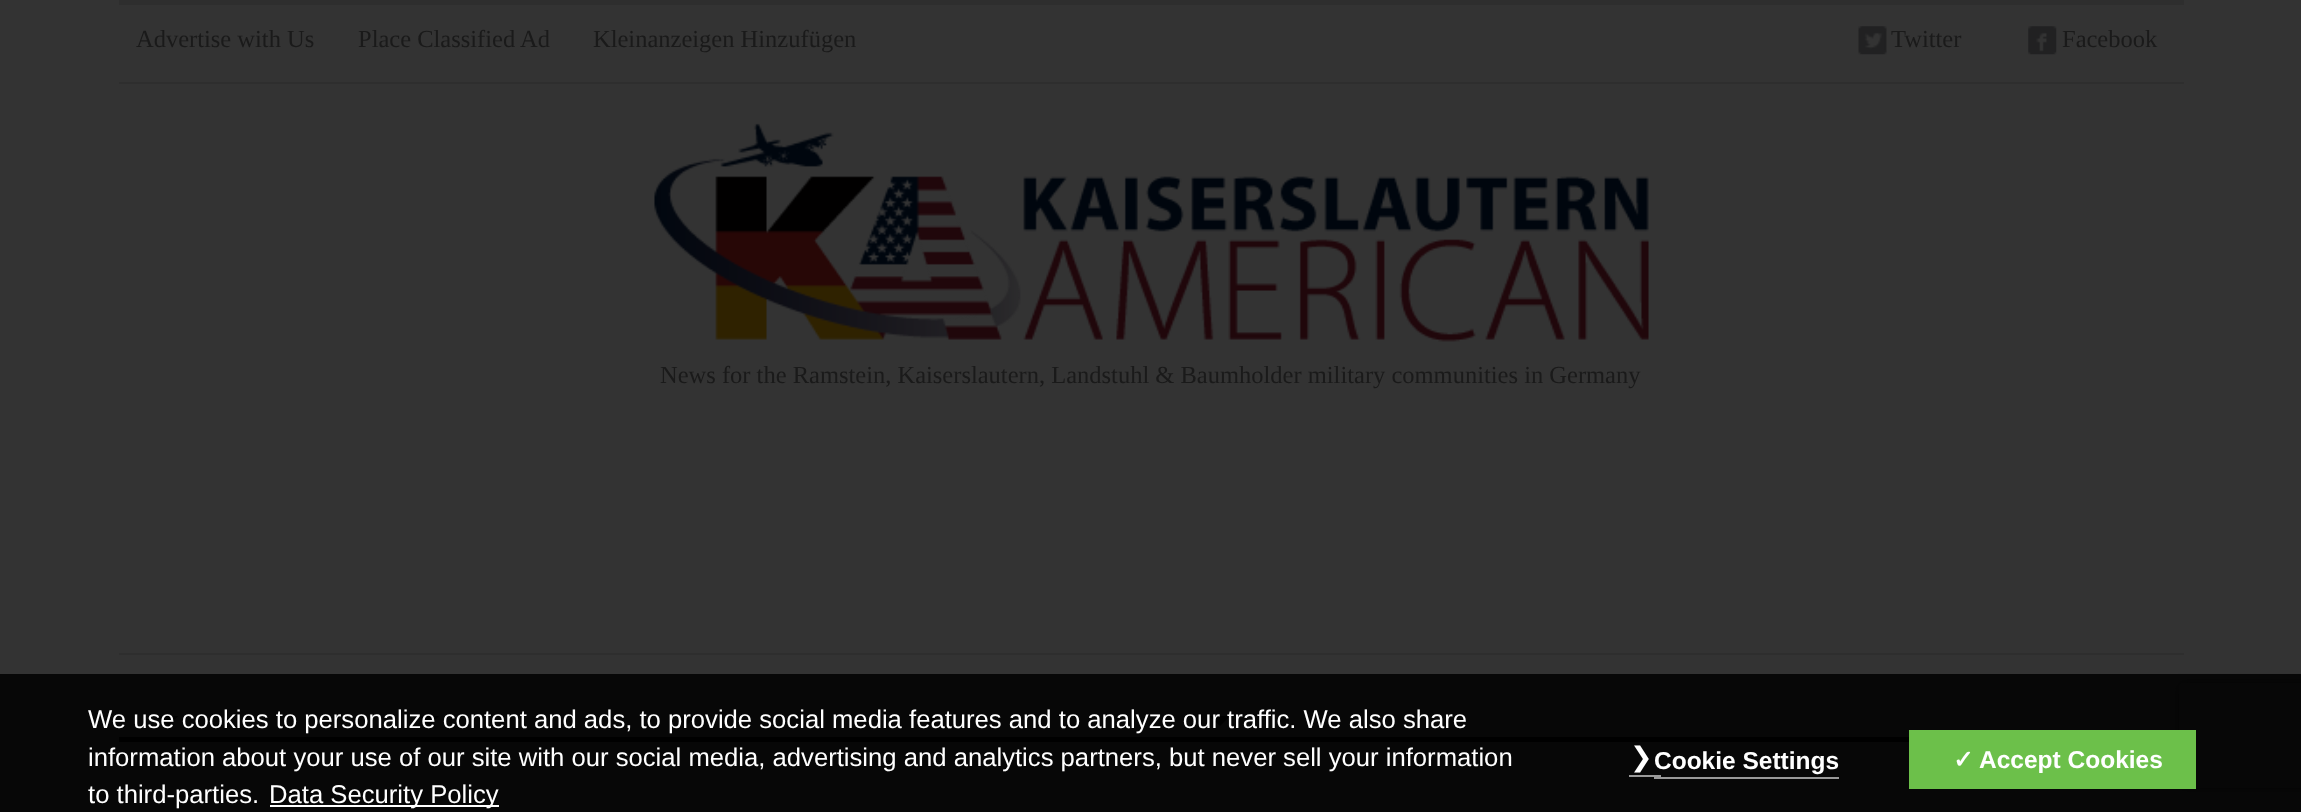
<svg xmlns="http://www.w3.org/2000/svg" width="2301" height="812">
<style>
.a{font:24.5px Liberation Serif;fill:#1a1a1a}
.b{font:25.67px Liberation Sans;fill:#fff}
.c{font:27px DejaVu Sans;fill:#fff}
.d{font:bold 24.5px Liberation Sans;fill:#fff}
.e{font:bold 24.5px DejaVu Sans;fill:#fff}
</style>
<defs>
<clipPath id="clip1"><path d="M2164 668h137v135h-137zm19 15h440c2 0 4 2 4 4v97c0 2-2 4-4 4h-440c-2 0-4-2-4-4v-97c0-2 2-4 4-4z" clip-rule="evenodd"/></clipPath>
</defs>
<rect width="100%" height="100%" fill="#333"/>
<path fill="#2e2e2e" d="M119 0h2065v5H119z"/>
<path fill="#2e2e2e" d="M119 82h2065v2H119z"/>
<image href="1.png" x="1858" y="26" width="29" height="29"/>
<image href="2.png" x="2028" y="26" width="29" height="29"/>
<image href="3.png" x="654" y="123" width="995" height="219"/>
<path fill="#2e2e2e" d="M119 653h2065v2H119z"/>
<path fill="#050505" d="M119 737h1790v5H119z"/>
<path fill="#000" d="M157.5 716h21l-10.5 10z"/>
<path fill="#000" d="M418 716h21l-10 10z"/>
<path fill="#000" d="M675.5 716h21l-10.5 10z"/>
<path fill="#000" d="M920.5 716h21l-10.5 10z"/>
<path fill="#000" d="M1209 716h21l-10 10z"/>
<g clip-path="url(#clip1)">
<rect fill="#1a1a1a" filter="blur(4.5px)" x="2179" y="683" width="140" height="105" rx="4"/>
</g>
<path fill="#000000d9" d="M0 674h2301v138H0z"/>
<path fill="#fff" d="M270 805h229v2H270z"/>
<path fill="#999" d="M1629 775h32v2H1629z"/>
<path fill="#999" d="M1654 777h185v2H1654z"/>
<path fill="#6cc04a" d="M1909 730h287v59H1909z"/>
<text class="a" x="136" y="47">Advertise with Us</text>
<text class="a" x="358" y="47">Place Classified Ad</text>
<text class="a" x="593" y="47">Kleinanzeigen Hinzufügen</text>
<text class="a" x="1891" y="47">Twitter</text>
<text class="a" x="2062" y="47">Facebook</text>
<text class="a" x="660" y="383">News for the Ramstein, Kaiserslautern, Landstuhl &amp; Baumholder military communities in Germany</text>
<text class="b" x="88" y="728">We use cookies to personalize content and ads, to provide social media features and to analyze our traffic. We also share</text>
<text class="b" x="88" y="766">information about your use of our site with our social media, advertising and analytics partners, but never sell your information</text>
<text class="b" x="88" y="803">to third-parties.</text>
<text class="b" x="269" y="803">Data Security Policy</text>
<text class="c" x="1630" y="766">❯</text>
<text class="d" x="1654" y="769">Cookie Settings</text>
<text class="e" x="1953" y="768">✓</text>
<text class="d" x="1979" y="768">Accept Cookies</text>
</svg>
